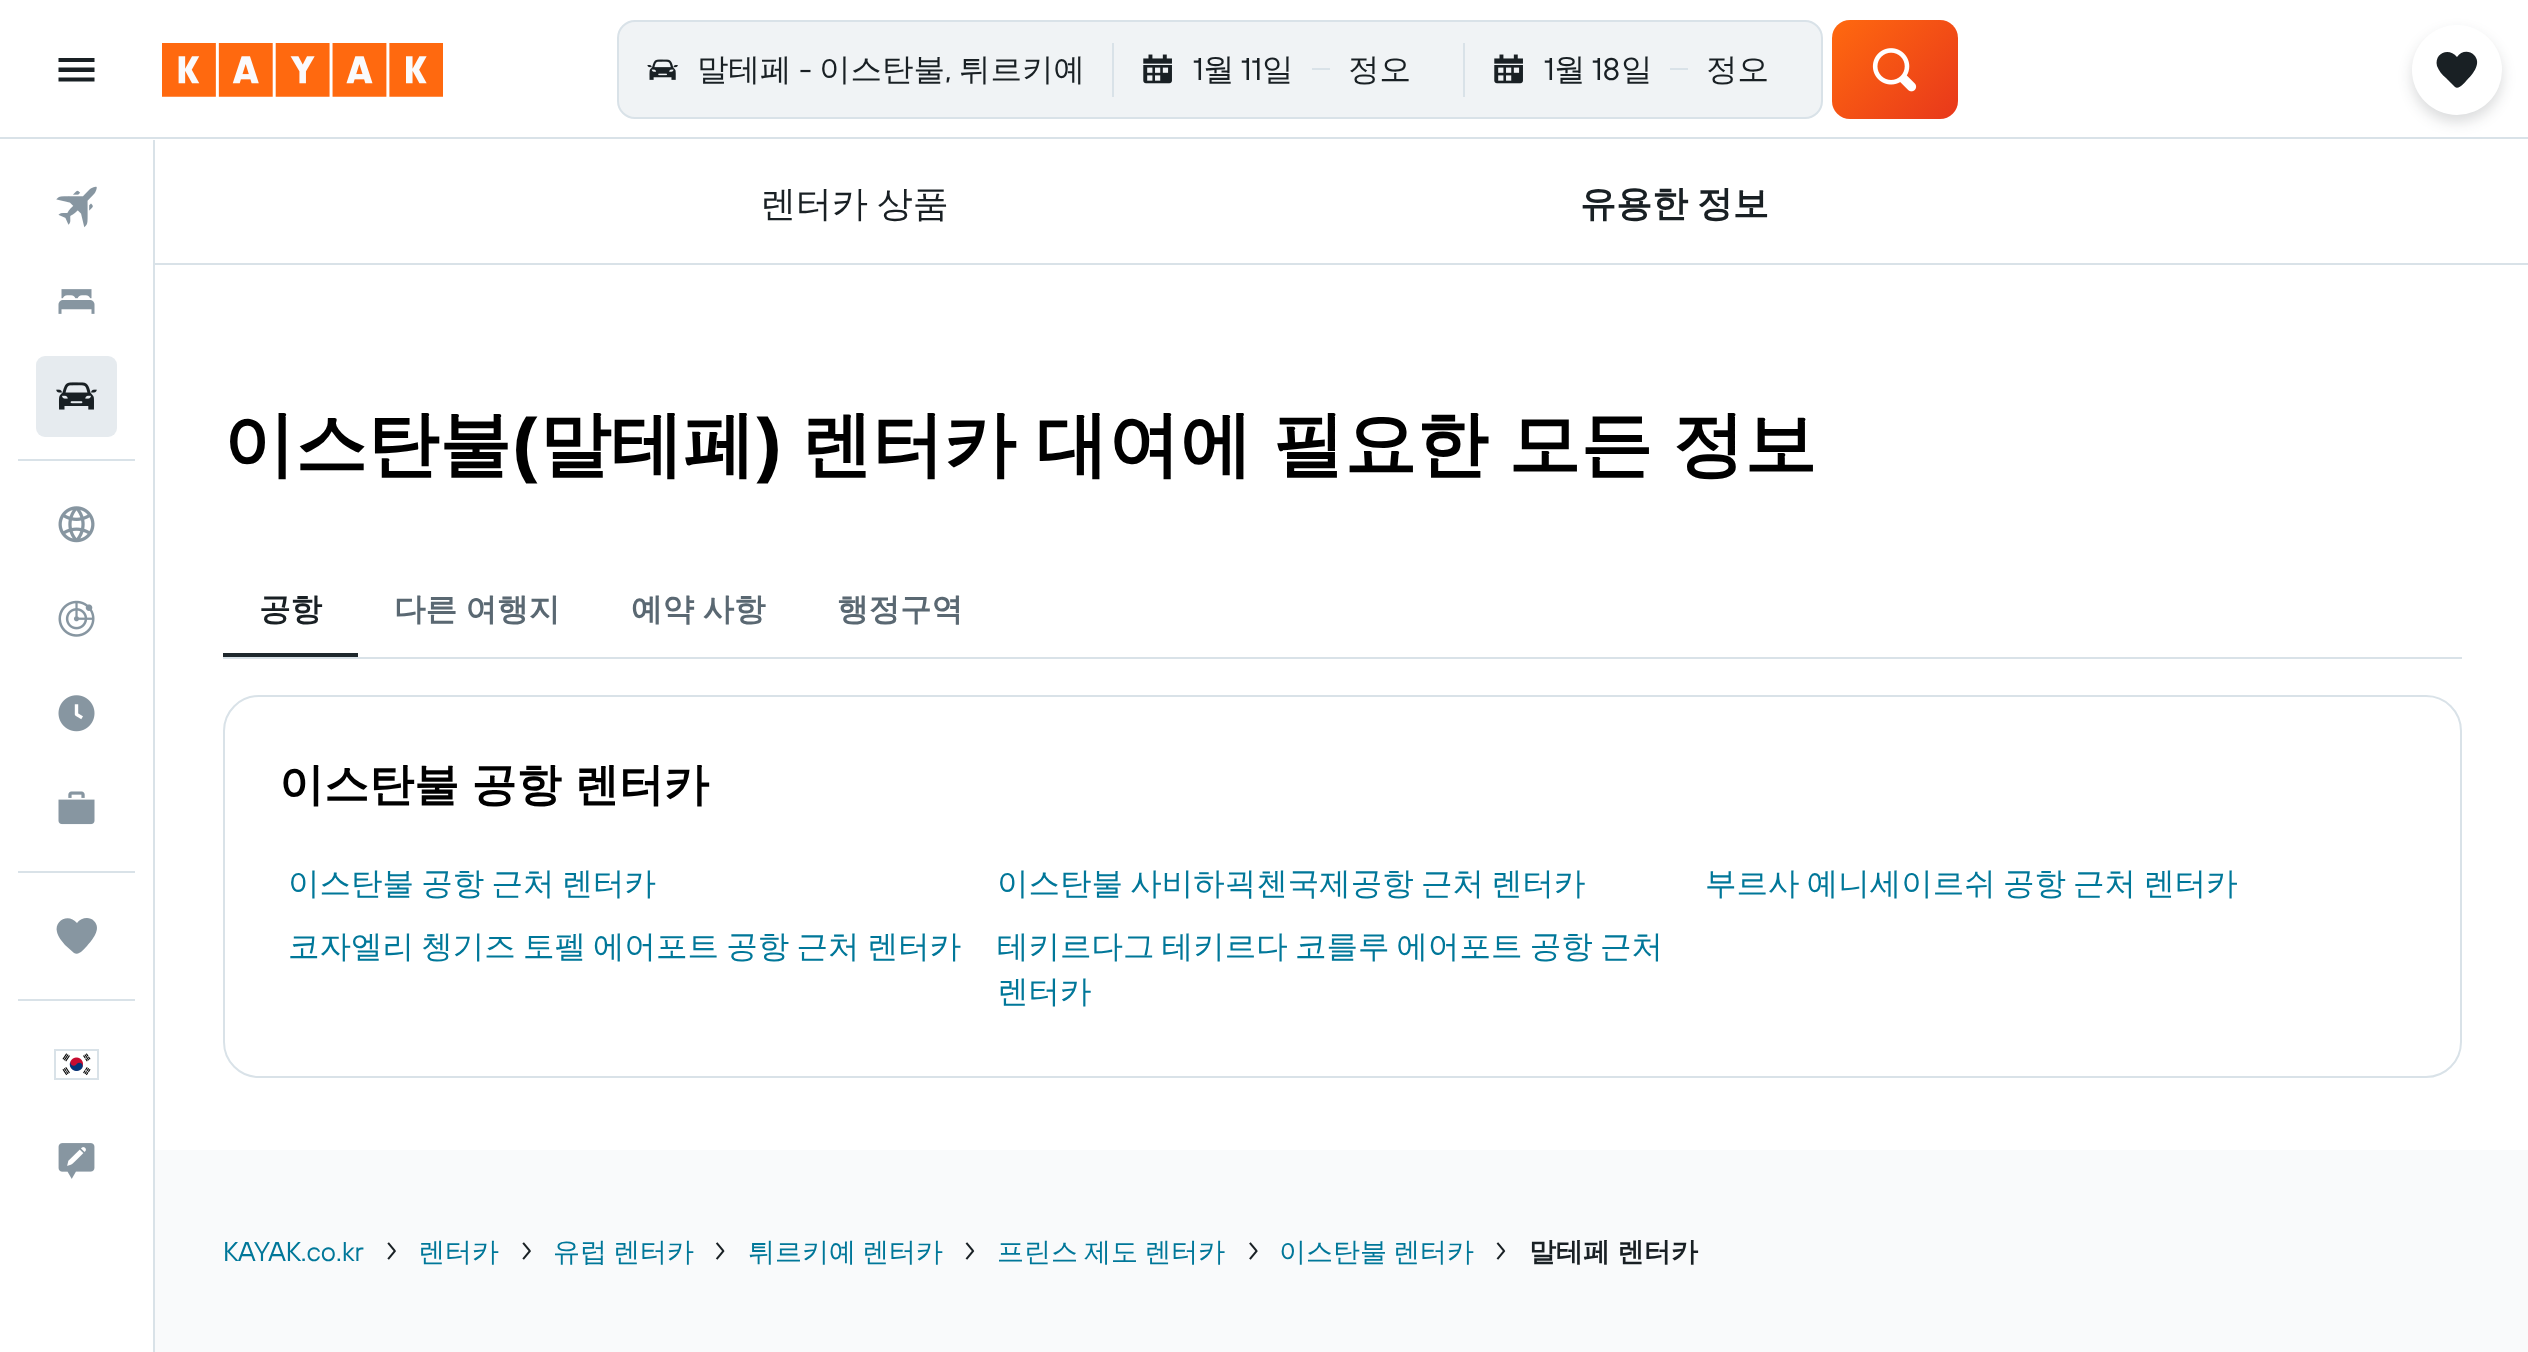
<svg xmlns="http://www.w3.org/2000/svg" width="2528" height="1352">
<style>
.a{font:500 31.5px WenQuanYi Zen Hei;fill:#192024}
.b{font:31.5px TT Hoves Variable;fill:#192024}
.c{font:500 36px WenQuanYi Zen Hei;fill:#192024}
.d{font:bold 36px WenQuanYi Zen Hei;fill:#192024}
.e{font:bold 72px WenQuanYi Zen Hei;fill:#000}
.f{font:bold 72px TT Hoves Variable;fill:#000}
.g{font:bold 31.5px WenQuanYi Zen Hei;fill:#192024}
.h{font:bold 31.5px WenQuanYi Zen Hei;fill:#5a6872}
.i{font:bold 45px WenQuanYi Zen Hei;fill:#000}
.j{font:500 31.5px WenQuanYi Zen Hei;fill:#079}
.k{font:27px TT Hoves Variable;fill:#079}
.l{font:500 27px WenQuanYi Zen Hei;fill:#079}
.m{font:bold 27px WenQuanYi Zen Hei;fill:#192024}
</style>
<defs>
<linearGradient id="g1" gradientUnits="userSpaceOnUse" x1="1838" y1="14" x2="1951" y2="126"><stop offset="0" stop-color="#ff690f"/><stop offset="1" stop-color="#e8381b"/></linearGradient>
</defs>
<rect width="100%" height="100%" fill="#fff"/>
<path fill="#d9e2e8" d="M0 137h2528v2H0z"/>
<path fill="#192024" d="M58.5 81.5h36v-4h-36zm0-9.5h36v-4.5h-36zm0-14v4h36v-4z"/>
<image href="1.png" x="162" y="43" width="281" height="54"/>
<rect fill="#f0f3f5" stroke="#d9e2e8" stroke-width="2" x="618" y="21" width="1204" height="97" rx="17"/>
<image href="2.png" x="647" y="59" width="31" height="21"/>
<path fill="#d9e2e8" d="M1112 43h2v54H1112z"/>
<image href="3.png" x="1143" y="54" width="29" height="30"/>
<path fill="#d9e2e8" d="M1312 68h18v2H1312z"/>
<path fill="#d9e2e8" d="M1463 43h2v54H1463z"/>
<image href="3.png" x="1494" y="54" width="29" height="30"/>
<path fill="#d9e2e8" d="M1670 68h18v2H1670z"/>
<rect fill="url(#g1)" x="1832" y="20" width="126" height="99" rx="18"/>
<image href="4.png" x="1872" y="48" width="45" height="44"/>
<rect fill="#19202429" filter="blur(7px)" x="2412" y="32" width="90" height="90" rx="45"/>
<circle fill="#fff" cx="2457" cy="70" r="45"/>
<path fill="#192024" d="M2474 55c-5-5-13-4-17 2c-8-10-23-4-20 9c2 5 5 9 9 12l9 9c4 3 10-5 12-7c6-6 15-17 7-25z"/>
<path fill="#d9e2e8" d="M153 140h2v1212H153z"/>
<image href="5.png" x="56" y="186" width="41" height="42"/>
<image href="6.png" x="58" y="289" width="37" height="25"/>
<rect fill="#e6ebef" x="36" y="356" width="81" height="81" rx="9"/>
<image href="7.png" x="56" y="382" width="41" height="28"/>
<path fill="#d9e2e8" d="M18 459h117v2H18z"/>
<image href="8.png" x="58" y="506" width="37" height="37"/>
<image href="9.png" x="58" y="600" width="37" height="37"/>
<image href="10.png" x="58" y="695" width="37" height="37"/>
<image href="11.png" x="58" y="791" width="37" height="34"/>
<path fill="#d9e2e8" d="M18 871h117v2H18z"/>
<path fill="#8796a1" d="M94 921c-5-5-13-3-17 2c-8-10-23-3-20 9c1 5 5 9 8 13l9 8c5 3 10-4 13-7c5-6 15-17 7-25z"/>
<path fill="#d9e2e8" d="M18 999h117v2H18z"/>
<path fill="none" stroke="#d9e2e8" stroke-width="2" d="M55 1050h43v29H55z"/>
<image href="12.png" x="62" y="1053" width="29" height="23"/>
<image href="13.png" x="58" y="1143" width="37" height="36"/>
<path fill="#d9e2e8" d="M155 263h2373v2H155z"/>
<path fill="#1f282d" d="M223 653h135v4H223z"/>
<path fill="#d9e2e8" d="M223 657h2239v2H223z"/>
<rect fill="none" stroke="#d9e2e8" stroke-width="2" x="224" y="696" width="2237" height="381" rx="35"/>
<path fill="#f9fafb" d="M155 1150h2373v202H155z"/>
<image href="14.png" x="387" y="1242" width="9" height="18"/>
<image href="14.png" x="522" y="1242" width="9" height="18"/>
<image href="15.png" x="715" y="1242" width="10" height="18"/>
<image href="16.png" x="965" y="1242" width="10" height="18"/>
<image href="17.png" x="1249" y="1242" width="9" height="18"/>
<image href="16.png" x="1496" y="1242" width="10" height="18"/>
<text class="a" x="697" y="80">말테페</text>
<text class="b" x="799" y="80">-</text>
<text class="a" x="819" y="80">이스탄불</text>
<text class="a" x="959" y="80">튀르키예</text>
<text class="b" x="945" y="80">,</text>
<text class="b" x="1193" y="80">1</text>
<text class="a" x="1203" y="80">월</text>
<text class="b" x="1241" y="80">11</text>
<text class="a" x="1262" y="80">일</text>
<text class="a" x="1348" y="80">정오</text>
<text class="b" x="1544" y="80">1</text>
<text class="a" x="1554" y="80">월</text>
<text class="b" x="1592" y="80">18</text>
<text class="a" x="1621" y="80">일</text>
<text class="a" x="1706" y="80">정오</text>
<text class="c" x="760" y="216" word-spacing="-2">렌터카 상품</text>
<text class="d" x="1580" y="216" word-spacing="-2">유용한 정보</text>
<text class="e" x="223" y="469">이스탄불</text>
<text class="f" x="511" y="469">(</text>
<text class="e" x="539" y="469">말테페</text>
<text class="f" x="755" y="469">)</text>
<text class="e" x="800" y="469" word-spacing="-1.5">렌터카 대여에 필요한 모든 정보</text>
<text class="g" x="259" y="620">공항</text>
<text class="h" x="394" y="620" word-spacing="-1">다른 여행지</text>
<text class="h" x="631" y="620" word-spacing="-1">예약 사항</text>
<text class="h" x="837" y="620">행정구역</text>
<text class="i" x="279" y="800" word-spacing="-1">이스탄불 공항 렌터카</text>
<text class="j" x="288" y="894" word-spacing="-2.25">이스탄불 공항 근처 렌터카</text>
<text class="j" x="997" y="894" word-spacing="-2.25">이스탄불 사비하괵첸국제공항 근처 렌터카</text>
<text class="j" x="1705" y="894" word-spacing="-2.25">부르사 예니세이르쉬 공항 근처 렌터카</text>
<text class="j" x="288" y="957" word-spacing="-2.25">코자엘리 쳉기즈 토펠 에어포트 공항 근처 렌터카</text>
<text class="j" x="997" y="957" word-spacing="-2.25">테키르다그 테키르다 코를루 에어포트 공항 근처</text>
<text class="j" x="997" y="1002">렌터카</text>
<text class="k" x="223" y="1261">KAYAK.co.kr</text>
<text class="l" x="418" y="1261">렌터카</text>
<text class="l" x="553" y="1261" word-spacing="-2">유럽 렌터카</text>
<text class="l" x="748" y="1261" word-spacing="-2">튀르키예 렌터카</text>
<text class="l" x="997" y="1261" word-spacing="-2">프린스 제도 렌터카</text>
<text class="l" x="1279" y="1261" word-spacing="-2">이스탄불 렌터카</text>
<text class="m" x="1529" y="1261" word-spacing="-1">말테페 렌터카</text>
</svg>
